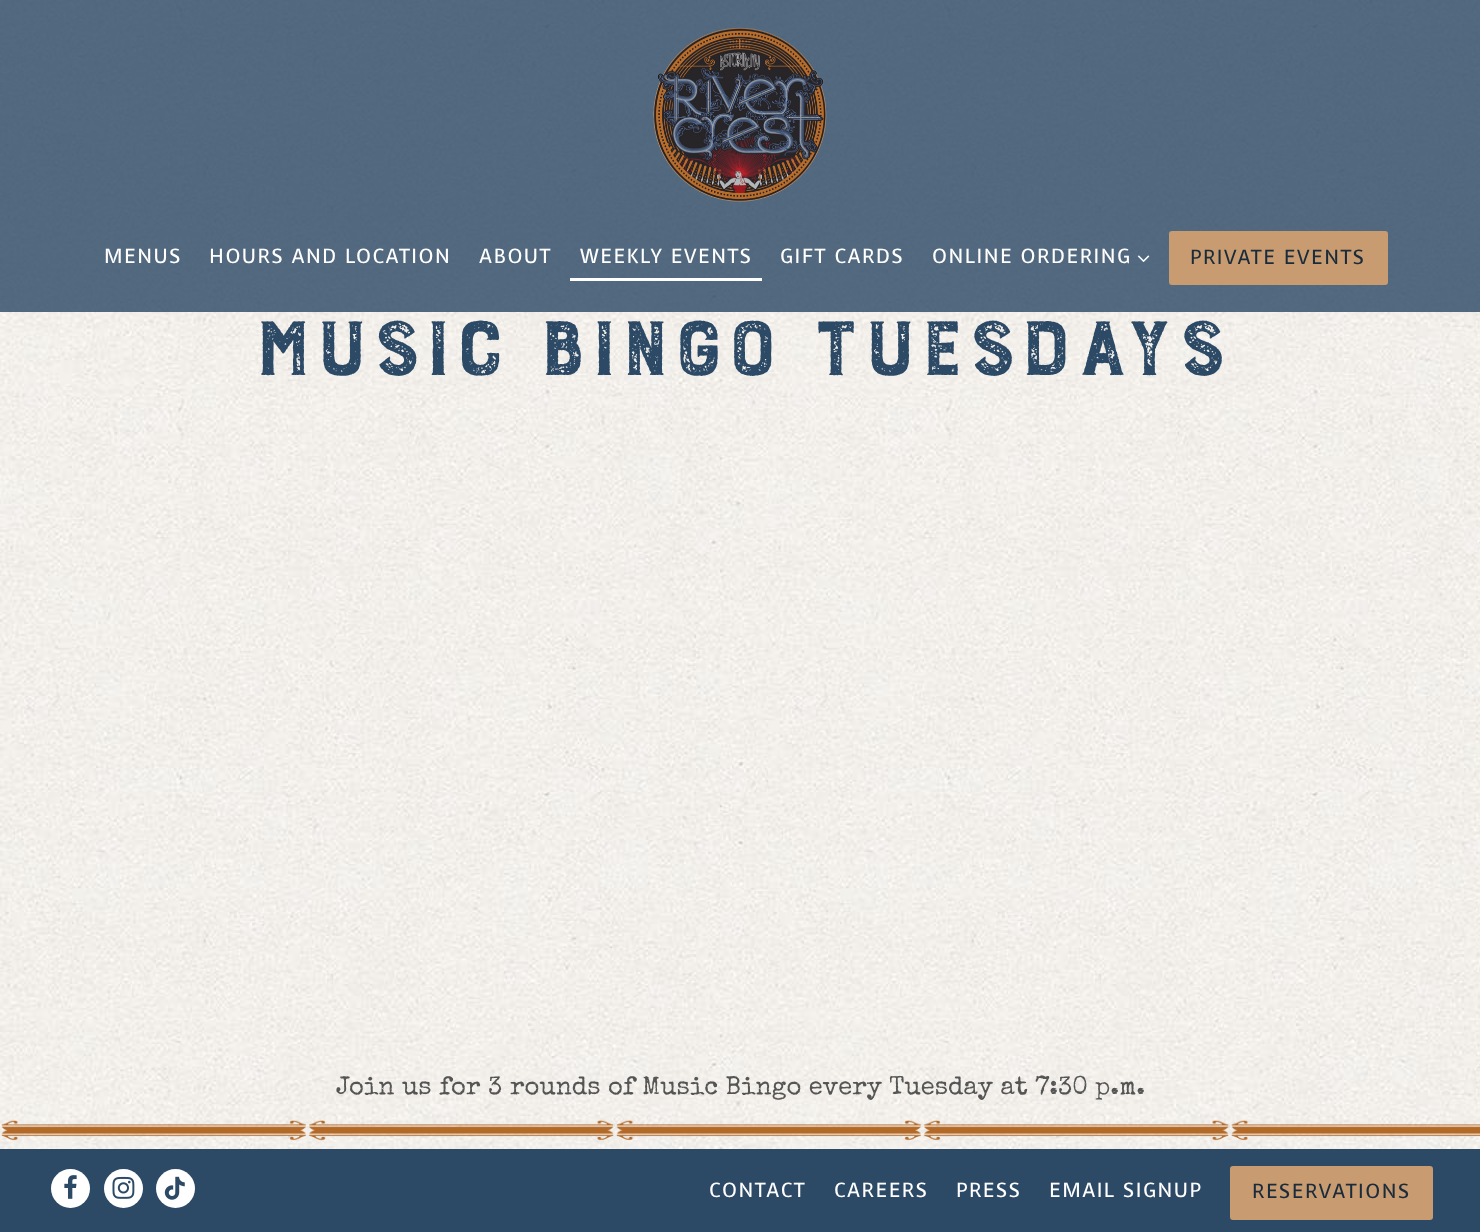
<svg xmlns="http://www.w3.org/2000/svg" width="1480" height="1232">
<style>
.a{font:20.4px Voces;letter-spacing:1.5px;fill:#fff}
.b{font:20.4px Voces;letter-spacing:1.5px;fill:#1a2b3c}
.c{font:300 102px 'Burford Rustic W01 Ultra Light';fill:#2c4965}
.d{font:25.5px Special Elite;fill:#555}
</style>
<rect width="100%" height="100%" fill="#fff"/>
<image href="1.png" x="0" y="0" width="1480" height="1149"/>
<path fill="#2c4965cf" d="M0 0h1480v312H0z"/>
<image href="2.png" x="653" y="27" width="174" height="175"/>
<path fill="#fff" d="M570 278h192v3H570z"/>
<image href="3.png" x="1137" y="255" width="13" height="7"/>
<rect fill="#c89c70" stroke="#c89c70" stroke-width="2" x="1170" y="232" width="217" height="52" rx="2"/>
<path fill="#2c4965" d="M0 1149h1480v83H0z"/>
<image href="4.png" x="1" y="1120" width="1479" height="21"/>
<circle fill="#fff" cx="70.5" cy="1188.5" r="19.5"/>
<image href="5.png" x="64" y="1175" width="13" height="24"/>
<circle fill="#fff" cx="123.5" cy="1188.5" r="19.5"/>
<image href="6.png" x="112" y="1176" width="23" height="23"/>
<circle fill="#fff" cx="175.5" cy="1188.5" r="19.5"/>
<image href="7.png" x="164" y="1176" width="21" height="24"/>
<rect fill="#c89c70" stroke="#c89c70" stroke-width="2" x="1231" y="1167" width="201" height="52" rx="2"/>
<text class="a" x="104" y="263">MENUS</text>
<text class="a" x="209" y="263">HOURS AND LOCATION</text>
<text class="a" x="479" y="263">ABOUT</text>
<text class="a" x="580" y="263">WEEKLY EVENTS</text>
<text class="a" x="780" y="263">GIFT CARDS</text>
<text class="a" x="932" y="263">ONLINE ORDERING</text>
<text class="b" x="1190" y="264">PRIVATE EVENTS</text>
<text class="c" x="252" y="375">MUSIC BINGO TUESDAYS</text>
<text class="d" x="336" y="1094">Join us for 3 rounds of Music Bingo every Tuesday at 7:30 p.m.</text>
<text class="a" x="709" y="1197">CONTACT</text>
<text class="a" x="834" y="1197">CAREERS</text>
<text class="a" x="956" y="1197">PRESS</text>
<text class="a" x="1049" y="1197">EMAIL SIGNUP</text>
<text class="b" x="1252" y="1198">RESERVATIONS</text>
</svg>
